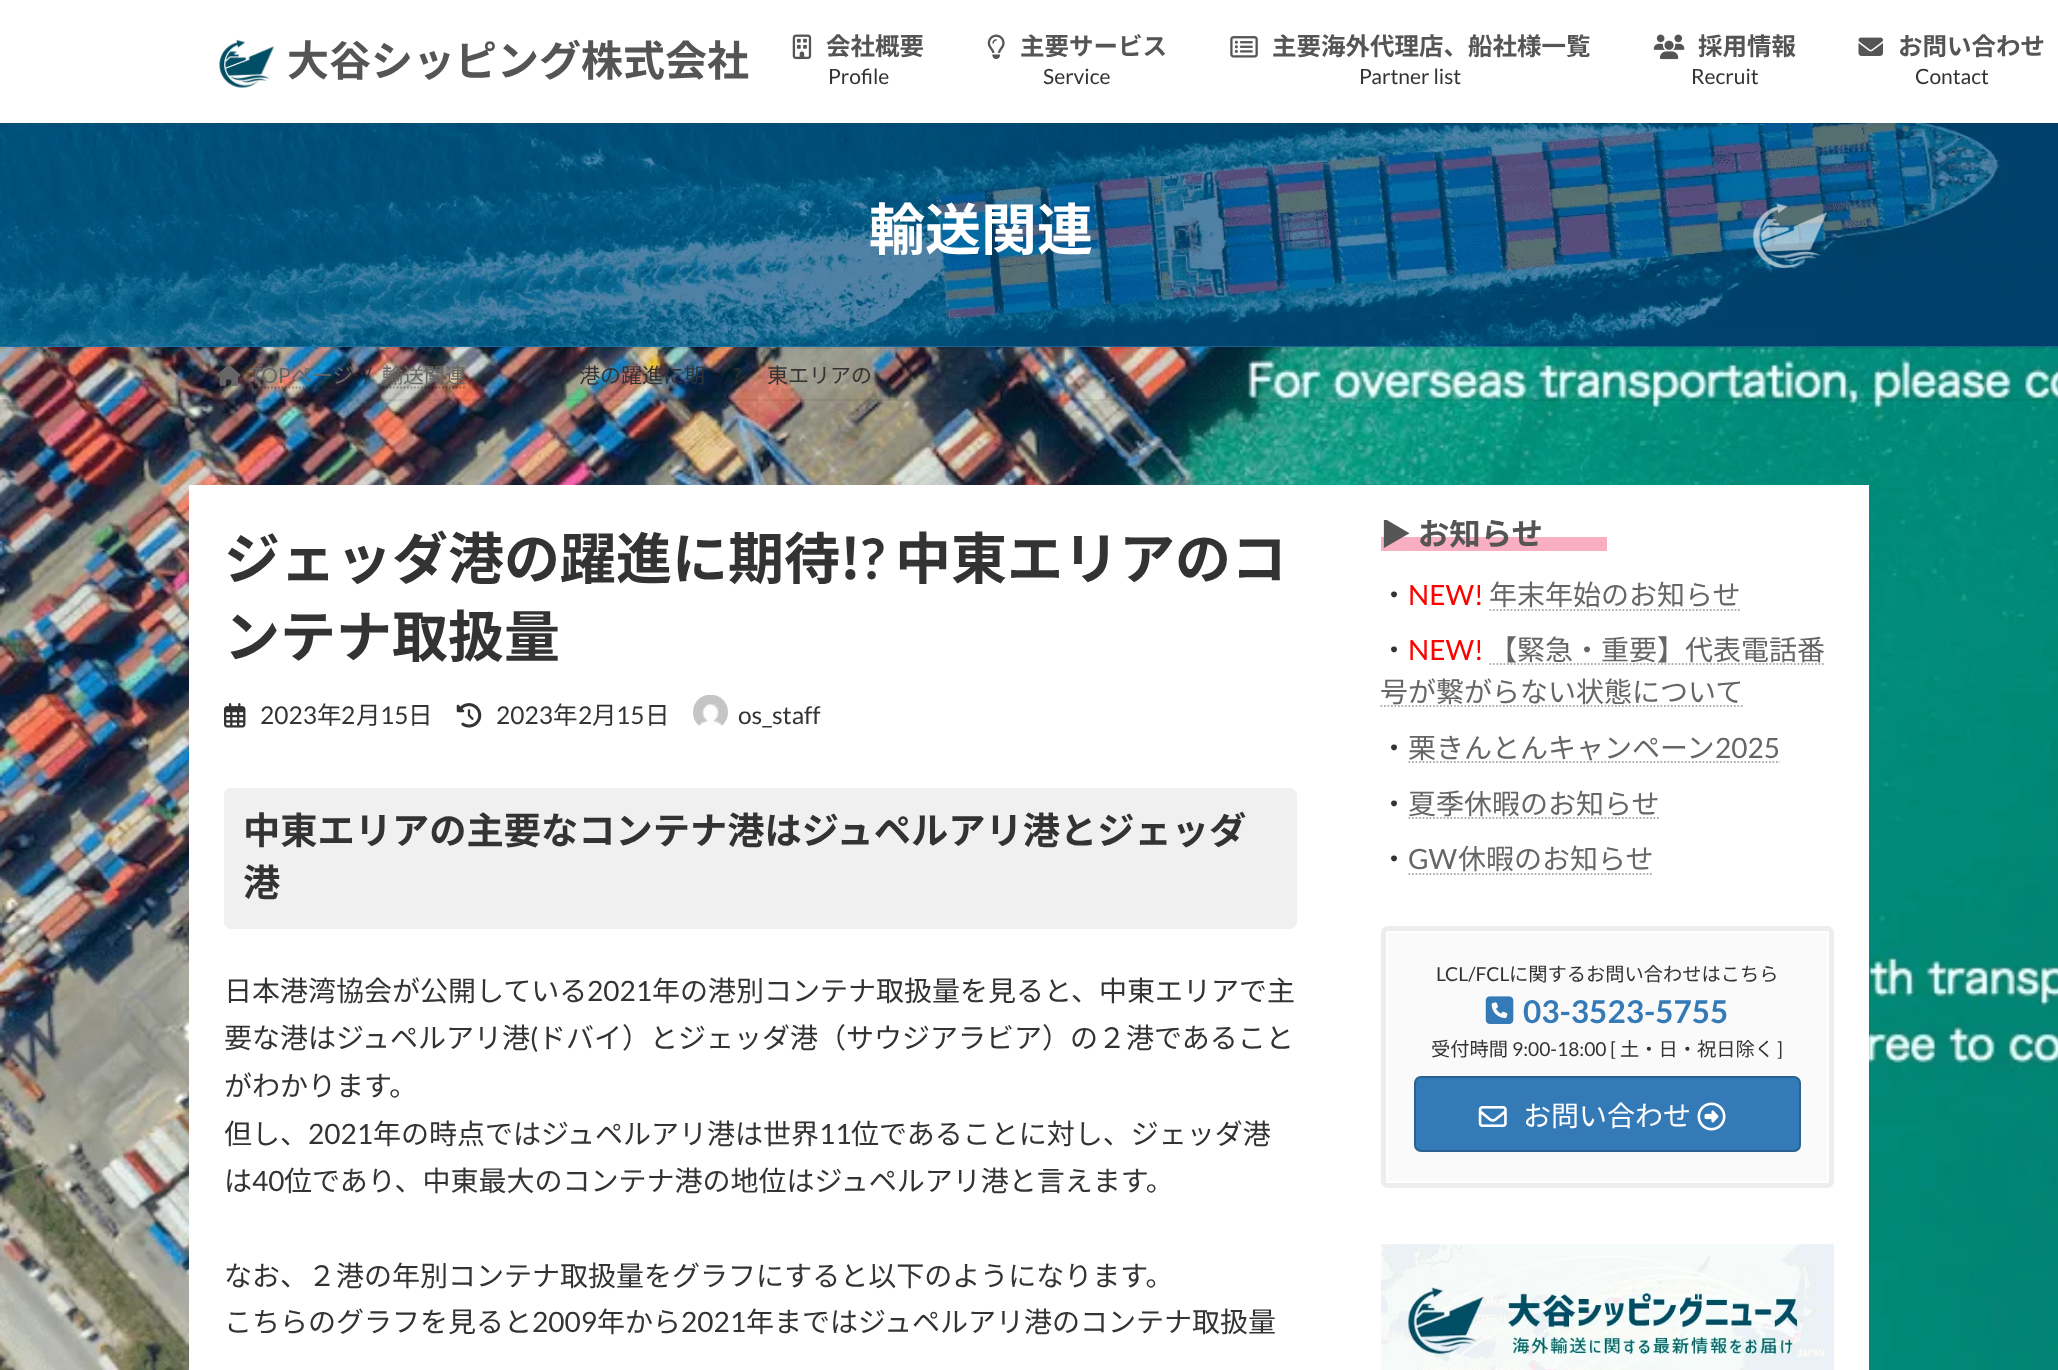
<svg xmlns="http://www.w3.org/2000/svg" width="2058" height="1370">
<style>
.a{font:bold 42px Noto Sans JP;fill:#555}
.b{font:bold 24.5px Noto Sans JP;fill:#555}
.c{font:21px Lato;fill:#333}
.d{font:bold 56px Noto Sans JP;fill:#fff}
.e{font:21px Lato;fill:#666}
.f{font:21px Noto Sans JP;fill:#666}
.g{font:21px Noto Sans JP;fill:#333}
.h{font:bold 56px Noto Sans JP;fill:#333}
.i{font:bold 56px Lato;fill:#333}
.j{font:24.5px Lato;fill:#333}
.k{font:24.5px Noto Sans JP;fill:#333}
.l{font:bold 37.25px Noto Sans JP;fill:#333}
.m{font:28px Noto Sans JP;fill:#333}
.n{font:28px Lato;fill:#333}
.o{font:bold 31.5px Noto Sans JP;fill:#555}
.p{font:28px Lato;fill:#f00}
.q{font:28px Noto Sans JP;fill:#666}
.r{font:28px Lato;fill:#666}
.s{font:19.25px Lato;fill:#333}
.t{font:19.25px Noto Sans JP;fill:#333}
.u{font:bold 31.5px Lato;fill:#337ab7}
.v{font:28px Noto Sans JP;fill:#fff}
</style>
<defs>
<clipPath id="clip1"><path d="M1381 520h453v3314H1381z"/></clipPath>
</defs>
<rect width="100%" height="100%" fill="#fff"/>
<image href="1.png" x="0" y="347" width="2058" height="1023"/>
<path fill="#337ab7" d="M0 346h2058v1H0z"/>
<image href="8.png" x="0" y="123" width="2058" height="224"/>
<path fill="#0000000d" filter="blur(2.5px)" d="M0 2h2058v122H0z"/>
<path fill="#fff" d="M0 0h2058v123H0z"/>
<image href="2.png" x="219" y="39" width="56" height="49"/>
<image href="3.png" x="792" y="34" width="20" height="26"/>
<image href="4.png" x="987" y="34" width="18" height="25"/>
<image href="5.png" x="1230" y="36" width="28" height="22"/>
<image href="6.png" x="1653" y="34" width="32" height="26"/>
<image href="7.png" x="1858" y="37" width="25" height="19"/>
<image href="9.png" x="1752" y="203" width="75" height="66"/>
<path fill="#0000000f" d="M0 347h2058v2H0z"/>
<path fill="#0000000f" d="M0 399h2058v2H0z"/>
<image href="10.png" x="217" y="365" width="24" height="21"/>
<path fill="none" stroke="#0000004d" stroke-width="1.8" stroke-dasharray="1.75 1.75" d="M250 387.5h103.5"/>
<path fill="none" stroke="#0000004d" stroke-width="1.8" stroke-dasharray="1.75 1.75" d="M382.5 387.5h84"/>
<path fill="#fff" d="M189 485h1680v885H189z"/>
<image href="11.png" x="224" y="703" width="22" height="25"/>
<image href="12.png" x="456" y="703" width="26" height="25"/>
<image href="13.png" x="693" y="695" width="35" height="31"/>
<rect fill="#f0f0f0" x="224" y="788" width="1073" height="141" rx="7"/>
<path fill="#f9afc1" d="M1381 537h226v14H1381z"/>
<path fill="none" stroke="#b3b3b3" stroke-width="1.8" stroke-dasharray="1.75 1.75" d="M1489.5 610h251.5"/>
<path fill="none" stroke="#b3b3b3" stroke-width="1.8" stroke-dasharray="1.75 1.75" d="M1489.5 664h336"/>
<path fill="none" stroke="#b3b3b3" stroke-width="1.8" stroke-dasharray="1.75 1.75" d="M1380.5 706h363"/>
<path fill="none" stroke="#b3b3b3" stroke-width="1.8" stroke-dasharray="1.75 1.75" d="M1408.5 762h371.5"/>
<path fill="none" stroke="#b3b3b3" stroke-width="1.8" stroke-dasharray="1.75 1.75" d="M1408.5 818h251.5"/>
<path fill="none" stroke="#b3b3b3" stroke-width="1.8" stroke-dasharray="1.75 1.75" d="M1408.5 874h244.5"/>
<rect fill="none" stroke="#ededed" stroke-width="5" x="1383.5" y="928.5" width="448" height="257" rx="4.5"/>
<rect fill="#fafafa" x="1386" y="931" width="443" height="252" rx="2"/>
<path fill="#fefefe" fill-rule="evenodd" d="M1388 931c-1 0-2 1-2 2v248c0 1 1 2 2 2h439c1 0 2-1 2-2v-248c0-1-1-2-2-2zm0 2v248h439v-248z"/>
<image href="14.png" x="1485" y="996" width="29" height="28"/>
<rect fill="#337ab7" stroke="#296292" stroke-width="2" x="1415" y="1077" width="385" height="74" rx="6"/>
<image href="15.png" x="1478" y="1106" width="29" height="21"/>
<image href="16.png" x="1697" y="1102" width="29" height="29"/>
<image href="17.png" x="1381" y="1244" width="453" height="126"/>
<text class="a" x="287" y="76">大谷シッピング株式会社</text>
<text class="b" x="826" y="55">会社概要</text>
<text class="c" x="828" y="84">Profile</text>
<text class="b" x="1020" y="55">主要サービス</text>
<text class="c" x="1043" y="84">Service</text>
<text class="b" x="1272" y="55">主要海外代理店、船社様一覧</text>
<text class="c" x="1359" y="84">Partner list</text>
<text class="b" x="1698" y="55">採用情報</text>
<text class="c" x="1691" y="84">Recruit</text>
<text class="b" x="1898" y="55">お問い合わせ</text>
<text class="c" x="1915" y="84">Contact</text>
<text class="d" x="869" y="250">輸送関連</text>
<text class="e" x="250" y="383">TOP</text>
<text class="f" x="291" y="383">ページ</text>
<text class="c" x="364" y="383">/</text>
<text class="f" x="382" y="383">輸送関連</text>
<text class="g" x="579" y="383">港の躍進に期</text>
<text class="c" x="733" y="383">?</text>
<text class="g" x="767" y="383">東エリアの</text>
<text class="h" x="224" y="579">ジェッダ港の躍進に期待!</text>
<text class="i" x="861" y="579">?</text>
<text class="h" x="895" y="579">中東エリアのコ</text>
<text class="h" x="224" y="657">ンテナ取扱量</text>
<text class="j" x="260" y="724">2023</text>
<text class="k" x="317" y="724">年</text>
<text class="j" x="341" y="724">2</text>
<text class="k" x="356" y="724">月</text>
<text class="j" x="380" y="724">15</text>
<text class="k" x="408" y="724">日</text>
<text class="j" x="496" y="724">2023</text>
<text class="k" x="553" y="724">年</text>
<text class="j" x="578" y="724">2</text>
<text class="k" x="592" y="724">月</text>
<text class="j" x="616" y="724">15</text>
<text class="k" x="645" y="724">日</text>
<text class="j" x="738" y="724">os_staff</text>
<text class="l" x="243" y="844">中東エリアの主要なコンテナ港はジュペルアリ港とジェッダ</text>
<text class="l" x="243" y="896">港</text>
<text class="m" x="224" y="1001">日本港湾協会が公開している</text>
<text class="n" x="587" y="1001">2021</text>
<text class="m" x="652" y="1001">年の港別コンテナ取扱量を見ると、中東エリアで主</text>
<text class="m" x="224" y="1048">要な港はジュペルアリ港</text>
<text class="n" x="530" y="1048">(</text>
<text class="m" x="538" y="1048">ドバイ）とジェッダ港（サウジアラビア）の２港であること</text>
<text class="m" x="224" y="1096">がわかります。</text>
<text class="m" x="224" y="1144">但し、</text>
<text class="n" x="308" y="1144">2021</text>
<text class="m" x="373" y="1144">年の時点ではジュペルアリ港は世界</text>
<text class="n" x="819" y="1144">11</text>
<text class="m" x="851" y="1144">位であることに対し、ジェッダ港</text>
<text class="m" x="224" y="1191">は</text>
<text class="n" x="252" y="1191">40</text>
<text class="m" x="284" y="1191">位であり、中東最大のコンテナ港の地位はジュペルアリ港と言えます。</text>
<text class="m" x="224" y="1286">なお、２港の年別コンテナ取扱量をグラフにすると以下のようになります。</text>
<text class="m" x="224" y="1332">こちらのグラフを見ると</text>
<text class="n" x="532" y="1332">2009</text>
<text class="m" x="597" y="1332">年から</text>
<text class="n" x="681" y="1332">2021</text>
<text class="m" x="746" y="1332">年まではジュペルアリ港のコンテナ取扱量</text>
<g clip-path="url(#clip1)">
<text class="o" x="1380" y="545" word-spacing="-1">▶︎ お知らせ</text>
</g>
<text class="m" x="1380" y="605">・</text>
<text class="p" x="1408" y="605">NEW!</text>
<text class="q" x="1489" y="605">年末年始のお知らせ</text>
<text class="m" x="1380" y="660">・</text>
<text class="p" x="1408" y="660">NEW!</text>
<text class="q" x="1489" y="660">【緊急・重要】代表電話番</text>
<text class="q" x="1380" y="702">号が繋がらない状態について</text>
<text class="m" x="1380" y="758">・</text>
<text class="q" x="1408" y="758">栗きんとんキャンペーン</text>
<text class="r" x="1715" y="758">2025</text>
<text class="m" x="1380" y="814">・</text>
<text class="q" x="1408" y="814">夏季休暇のお知らせ</text>
<text class="m" x="1380" y="869">・</text>
<text class="r" x="1408" y="869">GW</text>
<text class="q" x="1458" y="869">休暇のお知らせ</text>
<text class="s" x="1436" y="981">LCL/FCL</text>
<text class="t" x="1509" y="981">に関するお問い合わせはこちら</text>
<text class="u" x="1523" y="1023">03-3523-5755</text>
<text class="t" x="1431" y="1056">受付時間</text>
<text class="s" x="1512" y="1056">9:00-18:00 [</text>
<text class="t" x="1620" y="1056">土・日・祝日除く</text>
<text class="s" x="1777" y="1056">]</text>
<text class="v" x="1523" y="1126">お問い合わせ</text>
</svg>
